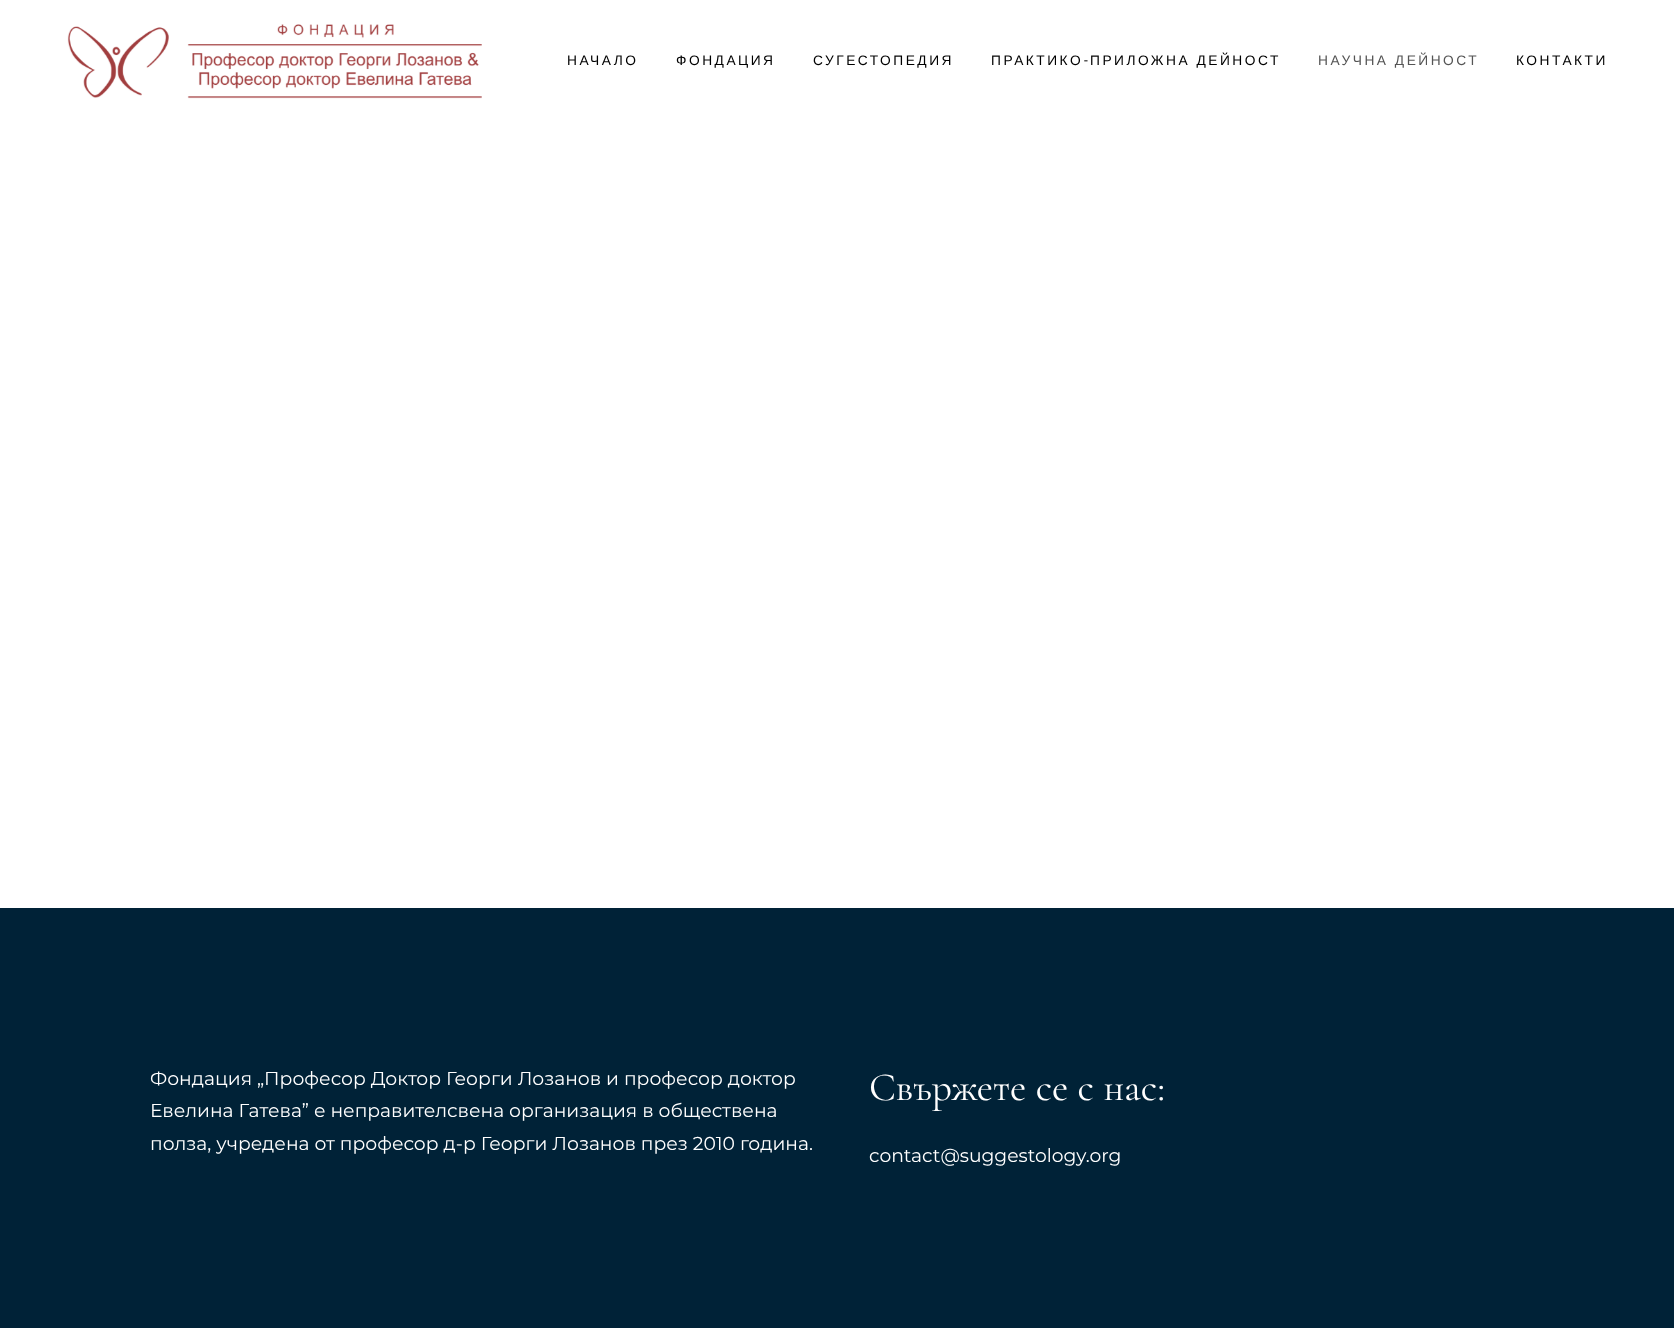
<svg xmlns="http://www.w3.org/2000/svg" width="1674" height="1332">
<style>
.a{font:13.75px Liberation Sans;letter-spacing:2.5px;fill:#000}
.b{font:13.75px Heebo;letter-spacing:2.5px;fill:#000}
.c{font:13.75px Liberation Sans;letter-spacing:2.5px;fill:#555}
.d{font:18.75px Montserrat;fill:#fff}
.e{font:40px Cormorant Garamond;fill:#fff}
</style>
<rect width="100%" height="100%" fill="#fff"/>
<image href="1.png" x="67" y="24" width="415" height="75"/>
<path fill="#002237" d="M0 908h1674v420H0z"/>
<text class="a" x="567" y="65">НАЧАЛО</text>
<text class="a" x="676" y="65">ФОНДАЦИЯ</text>
<text class="a" x="813" y="65">СУГЕСТОПЕДИЯ</text>
<text class="a" x="991" y="65">ПРАКТИКО</text>
<text class="b" x="1084" y="65">-</text>
<text class="a" x="1090" y="65">ПРИЛОЖНА ДЕЙНОСТ</text>
<text class="c" x="1318" y="65">НАУЧНА ДЕЙНОСТ</text>
<text class="a" x="1516" y="65">КОНТАКТИ</text>
<text class="d" x="150" y="1085">Фондация „Професор Доктор Георги Лозанов и професор доктор</text>
<text class="d" x="150" y="1117">Евелина Гатева” е неправителсвена организация в обществена</text>
<text class="d" x="150" y="1150">полза, учредена от професор д-р Георги Лозанов през 2010 година.</text>
<text class="e" x="869" y="1100">Свържете се с нас:</text>
<text class="d" x="869" y="1162">contact@suggestology.org</text>
</svg>
